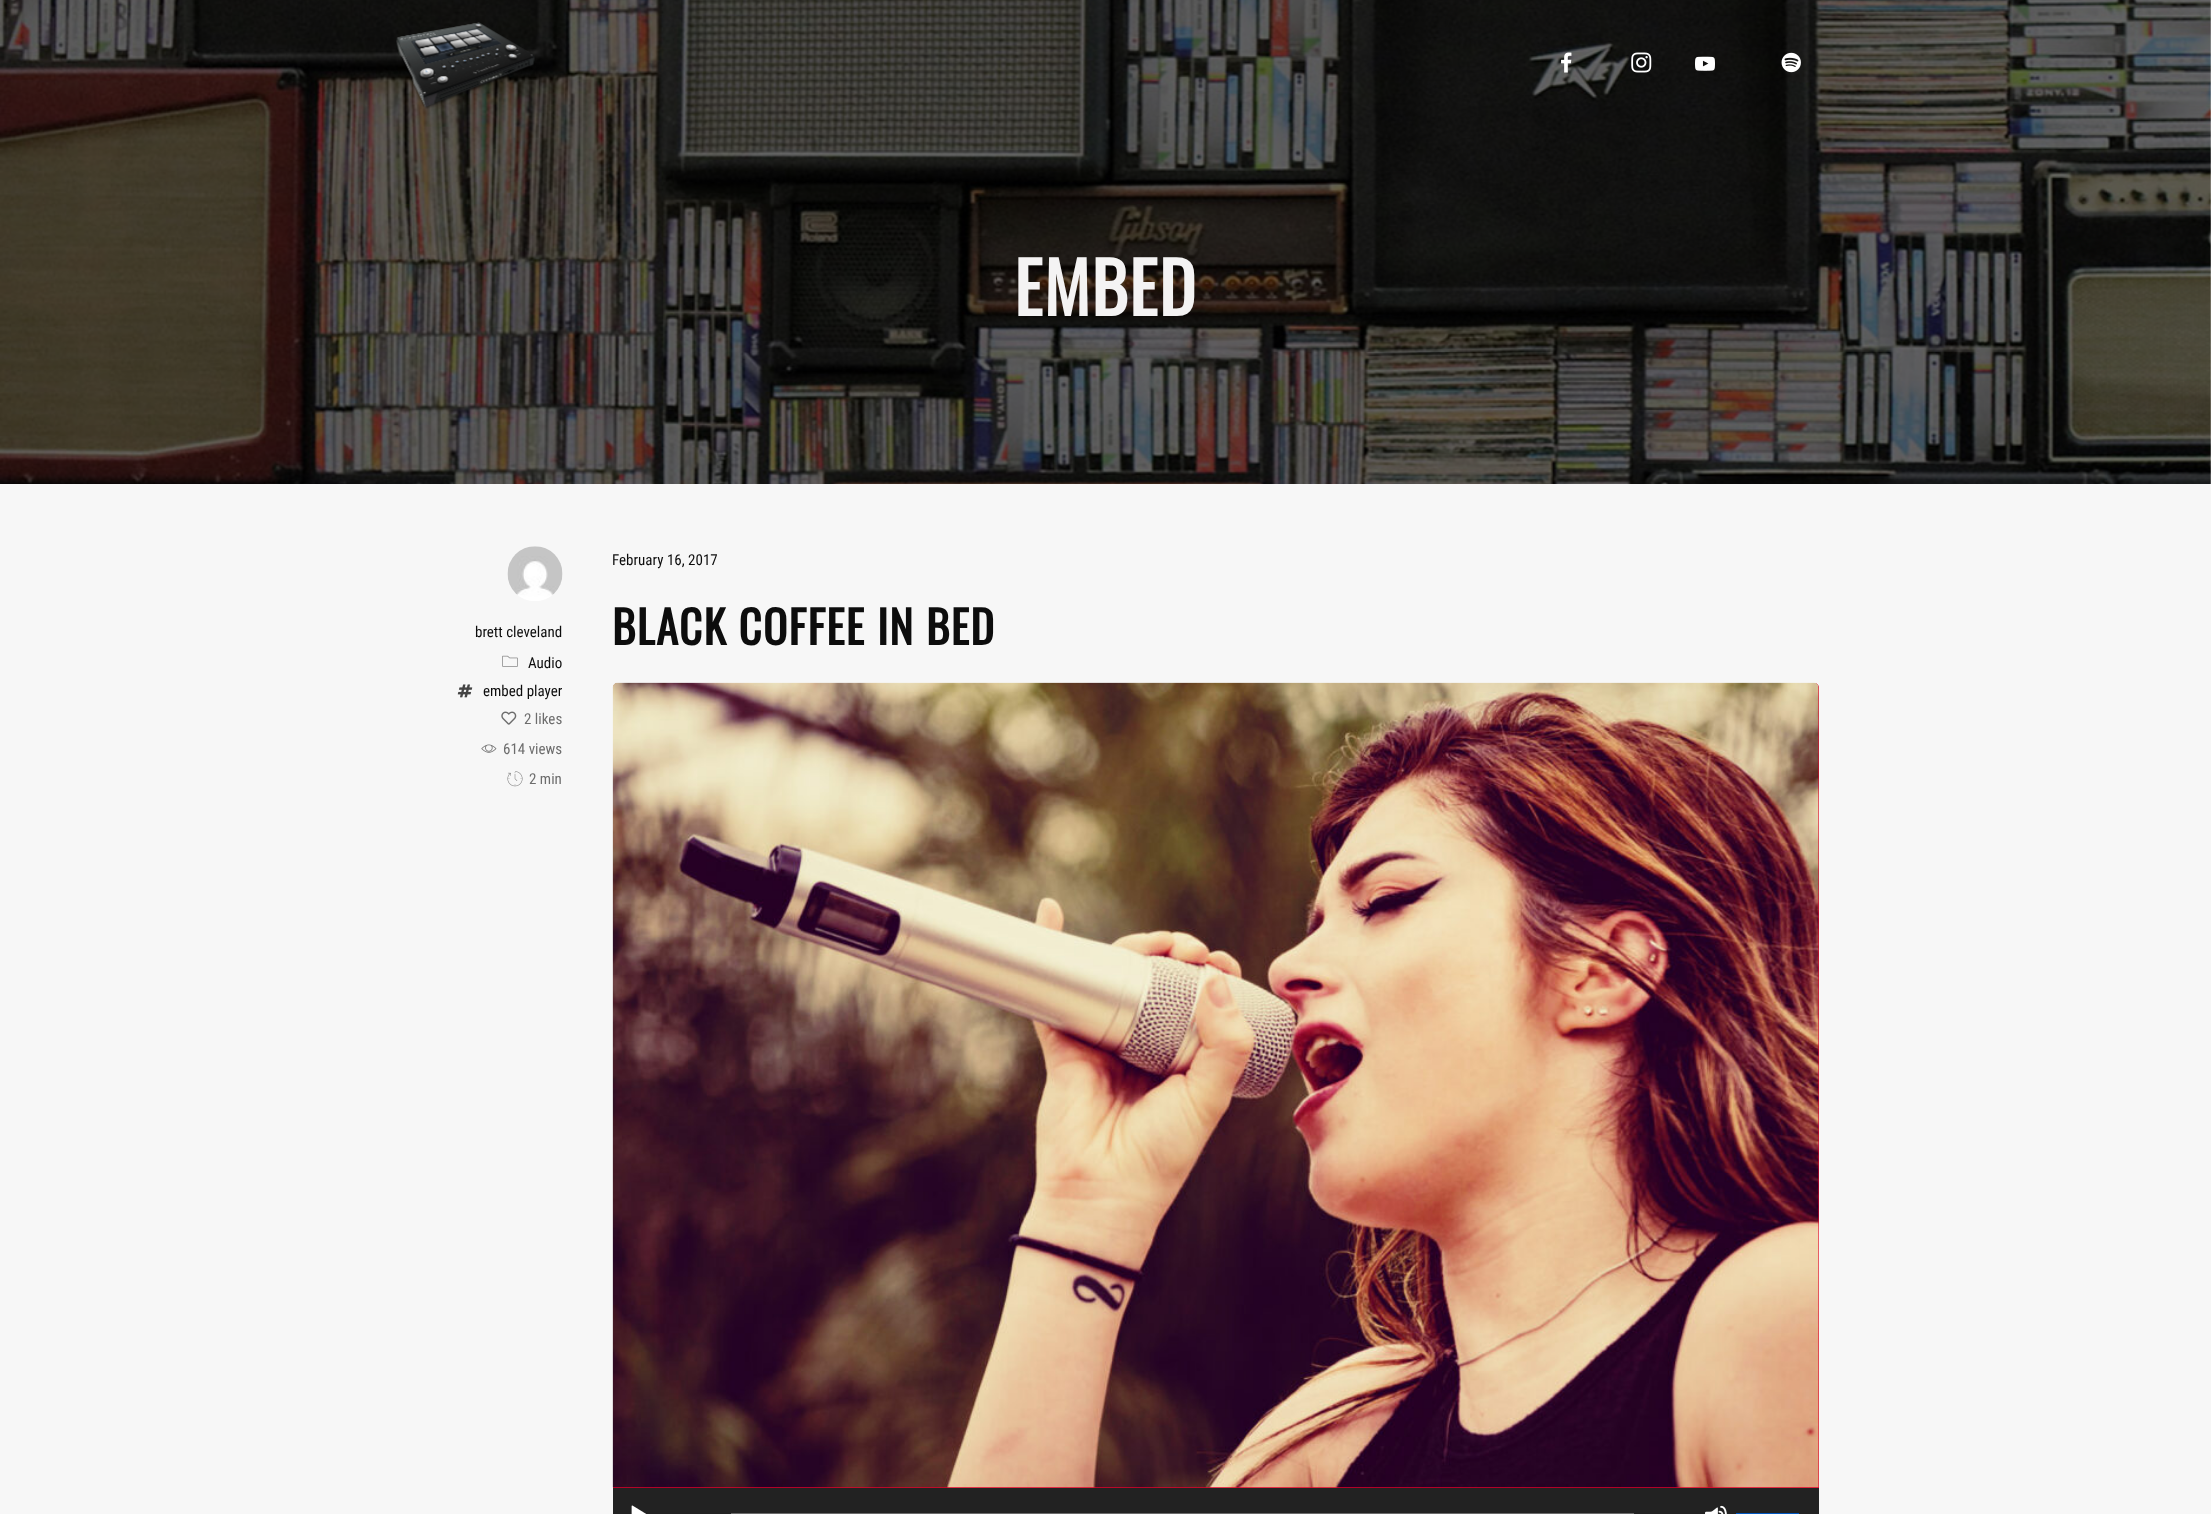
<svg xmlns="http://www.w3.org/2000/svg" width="2211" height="1514">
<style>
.a{font:bold 70px Oswald;letter-spacing:1.25px;fill:#f4f3f3}
.b{font:15px Roboto Condensed;fill:#0d0d0d}
.c{font:bold 45px Oswald;letter-spacing:1.25px;fill:#0d0d0d}
.d{font:15px Roboto Condensed;fill:#6d6d6d}
</style>
<rect width="100%" height="100%" fill="#fff"/>
<image href="6.png" x="0" y="0" width="2211" height="484"/>
<image href="1.png" x="396" y="22" width="139" height="87"/>
<image href="2.png" x="1561" y="52" width="11" height="21"/>
<image href="3.png" x="1631" y="52" width="21" height="21"/>
<image href="4.png" x="1695" y="56" width="20" height="15"/>
<image href="5.png" x="1781" y="52" width="20" height="21"/>
<path fill="#f7f7f7" d="M0 484h2211v1030H0z"/>
<path fill="#e2022b" d="M618 683h1196c3 0 5 2 5 5v800h-1206v-800c0-3 2-5 5-5z"/>
<image href="7.png" x="612" y="682" width="1207" height="806"/>
<path fill="#222" d="M613 1488h1206v26H613z"/>
<image href="8.png" x="631" y="1505" width="16" height="9"/>
<path fill="#6b6b6b" d="M731 1513h903v1H731z"/>
<image href="9.png" x="1705" y="1505" width="22" height="9"/>
<path fill="#0158c1" d="M1736 1513h63v1H1736z"/>
<image href="10.png" x="507" y="546" width="56" height="55"/>
<image href="11.png" x="502" y="655" width="16" height="12"/>
<image href="12.png" x="457" y="684" width="16" height="14"/>
<image href="13.png" x="501" y="711" width="16" height="14"/>
<image href="14.png" x="481" y="744" width="16" height="9"/>
<image href="15.png" x="507" y="771" width="16" height="16"/>
<text class="a" x="1014" y="316">EMBED</text>
<text class="b" x="612" y="565">February 16, 2017</text>
<text class="c" x="612" y="645">BLACK COFFEE IN BED</text>
<text class="b" x="475" y="637">brett cleveland</text>
<text class="b" x="528" y="668">Audio</text>
<text class="b" x="483" y="696">embed player</text>
<text class="d" x="524" y="724">2 likes</text>
<text class="d" x="503" y="754">614 views</text>
<text class="d" x="529" y="784">2 min</text>
</svg>
